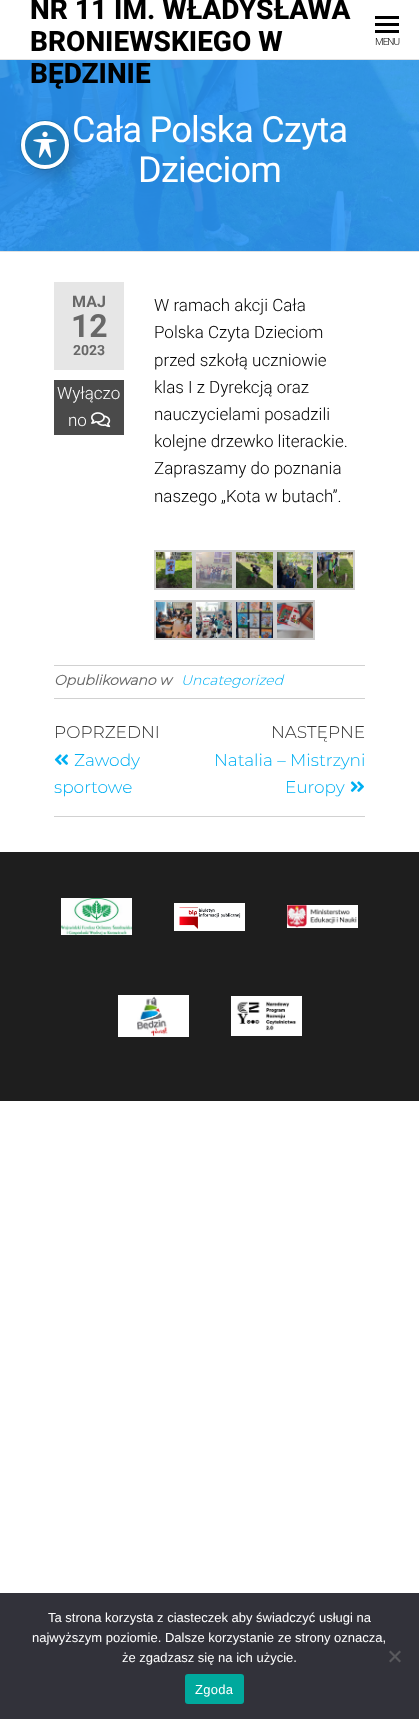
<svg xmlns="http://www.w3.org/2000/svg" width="419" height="1719">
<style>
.a{font:800 28px Roboto;fill:#000}
.b{font:300 10px Roboto;letter-spacing:-1px;fill:#000}
.c{font:36px Roboto;letter-spacing:-0.75px;fill:#fff}
.d{font:bold 16px Roboto;fill:#686868}
.e{font:bold 32px Roboto;fill:#686868}
.f{font:bold 14px Roboto;fill:#686868}
.g{font:300 17px Roboto;fill:#fff}
.h{font:300 17px Roboto;fill:#000}
.i{font:italic bold 14px Montserrat;fill:#686868}
.j{font:italic 100 14px Montserrat;fill:#00aff2}
.k{font:100 17px Montserrat;fill:#333}
.l{font:100 17px Montserrat;fill:#00aff2}
.m{font:13px Liberation Sans;fill:#fff}
.n{font:13px Liberation Sans;letter-spacing:0.25px;fill:#fff}
</style>
<rect width="100%" height="100%" fill="#fff"/>
<path fill="#e2e2e2" d="M0 59h419v1H0z"/>
<path fill="#000" d="M375 16h24v3H375z"/>
<path fill="#000" d="M375 23h24v3H375z"/>
<path fill="#000" d="M375 30h24v3H375z"/>
<image href="1.png" x="0" y="60" width="419" height="191"/>
<path fill="#e2e2e2" d="M0 251h419v1H0z"/>
<path fill="#e6e6e6" d="M54 282h70v88H54z"/>
<path fill="#4a4a4a" d="M54 380h70v55H54z"/>
<image href="2.png" x="91" y="412" width="20" height="16"/>
<path fill="none" stroke="#cfcfcf" stroke-width="2" d="M155 551h38v38H155z"/>
<image href="3.png" x="156" y="552" width="36" height="36"/>
<path fill="none" stroke="#cfcfcf" stroke-width="2" d="M195 551h38v38H195z"/>
<image href="4.png" x="196" y="552" width="36" height="36"/>
<path fill="none" stroke="#cfcfcf" stroke-width="2" d="M235 551h39v38H235z"/>
<image href="5.png" x="236" y="552" width="37" height="36"/>
<path fill="none" stroke="#cfcfcf" stroke-width="2" d="M276 551h38v38H276z"/>
<image href="6.png" x="277" y="552" width="36" height="36"/>
<path fill="none" stroke="#cfcfcf" stroke-width="2" d="M316 551h38v38H316z"/>
<image href="7.png" x="317" y="552" width="36" height="36"/>
<path fill="none" stroke="#cfcfcf" stroke-width="2" d="M155 601h38v38H155z"/>
<image href="8.png" x="156" y="602" width="36" height="36"/>
<path fill="none" stroke="#cfcfcf" stroke-width="2" d="M195 601h38v38H195z"/>
<image href="9.png" x="196" y="602" width="36" height="36"/>
<path fill="none" stroke="#cfcfcf" stroke-width="2" d="M235 601h39v38H235z"/>
<image href="10.png" x="236" y="602" width="37" height="36"/>
<path fill="none" stroke="#cfcfcf" stroke-width="2" d="M276 601h38v38H276z"/>
<image href="11.png" x="277" y="602" width="36" height="36"/>
<path fill="#d1d1d1" d="M54 665h311v1H54z"/>
<path fill="#d1d1d1" d="M54 698h311v1H54z"/>
<path fill="#d1d1d1" d="M54 816h311v1H54z"/>
<image href="12.png" x="54" y="754" width="14" height="11"/>
<image href="13.png" x="350" y="781" width="14" height="11"/>
<path fill="#1e1e1e" d="M0 852h419v249H0z"/>
<image href="14.png" x="61" y="898" width="71" height="37"/>
<image href="15.png" x="174" y="903" width="71" height="28"/>
<image href="16.png" x="287" y="905" width="71" height="23"/>
<image href="17.png" x="118" y="995" width="71" height="42"/>
<image href="18.png" x="231" y="996" width="71" height="40"/>
<circle fill="none" stroke="#1e7ab9" cx="45" cy="145" r="24.5"/>
<rect fill="#00000033" filter="blur(8px)" x="27" y="129" width="48" height="48" rx="24"/>
<circle fill="#1e7ab9" stroke="#fff" stroke-width="4" cx="45" cy="145" r="22"/>
<image href="19.png" x="33" y="131" width="24" height="27"/>
<path fill="#32323a" d="M0 1593h419v126H0z"/>
<path fill="#59595d" d="M399.5 1650.5l1.5 1.5l-10.5 10.5l-1.5-1.5z"/>
<path fill="#59595d" d="M389 1652l1.5-1.5l10.5 10.5l-1.5 1.5z"/>
<rect fill="#00a99d" x="185" y="1674" width="59" height="30" rx="3"/>
<text class="a" x="30" y="19">NR 11 IM. WŁADYSŁAWA</text>
<text class="a" x="30" y="51">BRONIEWSKIEGO W</text>
<text class="a" x="30" y="83">BĘDZINIE</text>
<text class="b" x="375" y="45">MENU</text>
<text class="c" x="72" y="142">Cała Polska Czyta</text>
<text class="c" x="138" y="182">Dzieciom</text>
<text class="d" x="72" y="307">MAJ</text>
<text class="e" x="71" y="337">12</text>
<text class="f" x="73" y="355">2023</text>
<text class="g" x="57" y="399">Wyłączo</text>
<text class="g" x="68" y="426">no</text>
<text class="h" x="154" y="311">W ramach akcji Cała</text>
<text class="h" x="154" y="338">Polska Czyta Dzieciom</text>
<text class="h" x="154" y="366">przed szkołą uczniowie</text>
<text class="h" x="154" y="393">klas I z Dyrekcją oraz</text>
<text class="h" x="154" y="420">nauczycielami posadzili</text>
<text class="h" x="154" y="447">kolejne drzewko literackie.</text>
<text class="h" x="154" y="474">Zapraszamy do poznania</text>
<text class="h" x="154" y="502">naszego „Kota w butach”.</text>
<text class="i" x="54" y="685">Opublikowano w</text>
<text class="j" x="181" y="685">Uncategorized</text>
<text class="k" x="54" y="738">POPRZEDNI</text>
<text class="l" x="74" y="766">Zawody</text>
<text class="l" x="54" y="793">sportowe</text>
<text class="k" x="271" y="738">NASTĘPNE</text>
<text class="l" x="214" y="766">Natalia – Mistrzyni</text>
<text class="l" x="285" y="793">Europy</text>
<text class="m" x="48" y="1622">Ta strona korzysta z ciasteczek aby świadczyć usługi na</text>
<text class="m" x="32" y="1642">najwyższym poziomie. Dalsze korzystanie ze strony oznacza,</text>
<text class="m" x="122" y="1662">że zgadzasz się na ich użycie.</text>
<text class="n" x="195" y="1694">Zgoda</text>
</svg>
